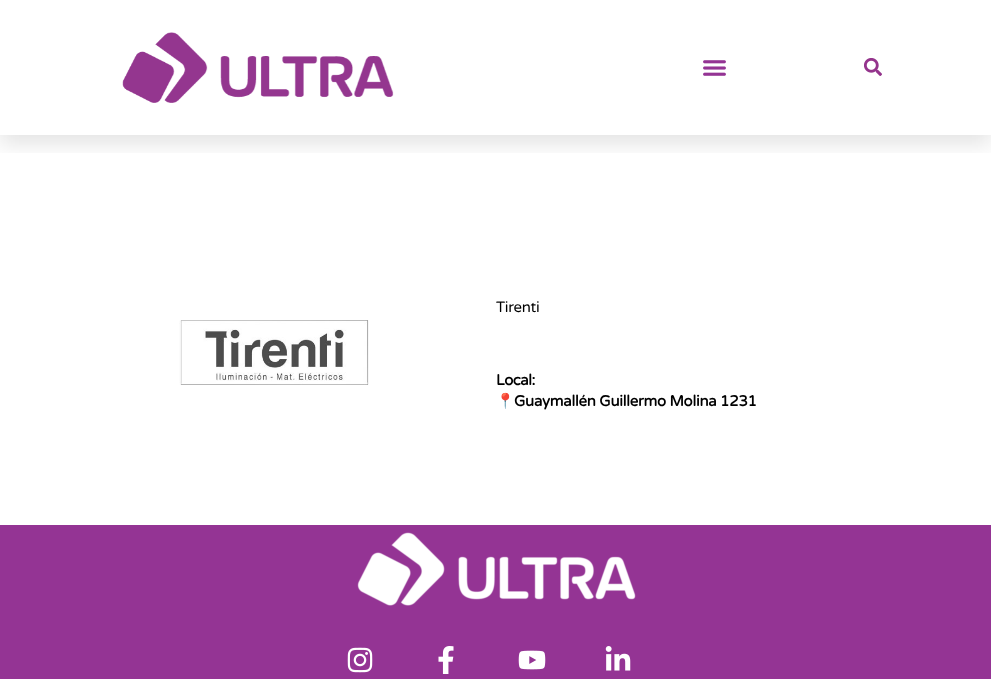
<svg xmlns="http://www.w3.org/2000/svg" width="991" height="679">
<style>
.a{font:15px Varela Round;letter-spacing:-0.25px;fill:#000}
.b{font:bold 15px Varela Round;letter-spacing:-0.5px;fill:#000}
.c{font:15px Noto Color Emoji;letter-spacing:-0.25px;fill:#000}
.d{font:bold 15px Varela Round;letter-spacing:-0.25px;fill:#000}
</style>
<defs>
<clipPath id="clip1"><path d="M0 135h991v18H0z"/></clipPath>
</defs>
<rect width="100%" height="100%" fill="#fff"/>
<g clip-path="url(#clip1)">
<path fill="#0000001a" filter="blur(10px)" d="M0 10h991v135H0z"/>
</g>
<image href="1.png" x="122" y="32" width="272" height="71"/>
<image href="2.png" x="703" y="60" width="23" height="16"/>
<image href="3.png" x="864" y="58" width="18" height="18"/>
<image href="4.png" x="179" y="320" width="190" height="65"/>
<path fill="#943494" d="M0 525h991v154H0z"/>
<image href="5.png" x="357" y="532" width="279" height="74"/>
<image href="6.png" x="347" y="647" width="26" height="26"/>
<image href="7.png" x="438" y="646" width="16" height="28"/>
<image href="8.png" x="518" y="650" width="28" height="20"/>
<image href="9.png" x="605" y="646" width="26" height="25"/>
<text class="a" x="496" y="312">Tirenti</text>
<text class="b" x="496" y="385">Local:</text>
<text class="c" x="496" y="406">📍</text>
<text class="d" x="514" y="406">Guaymallén Guillermo Molina 1231</text>
</svg>
